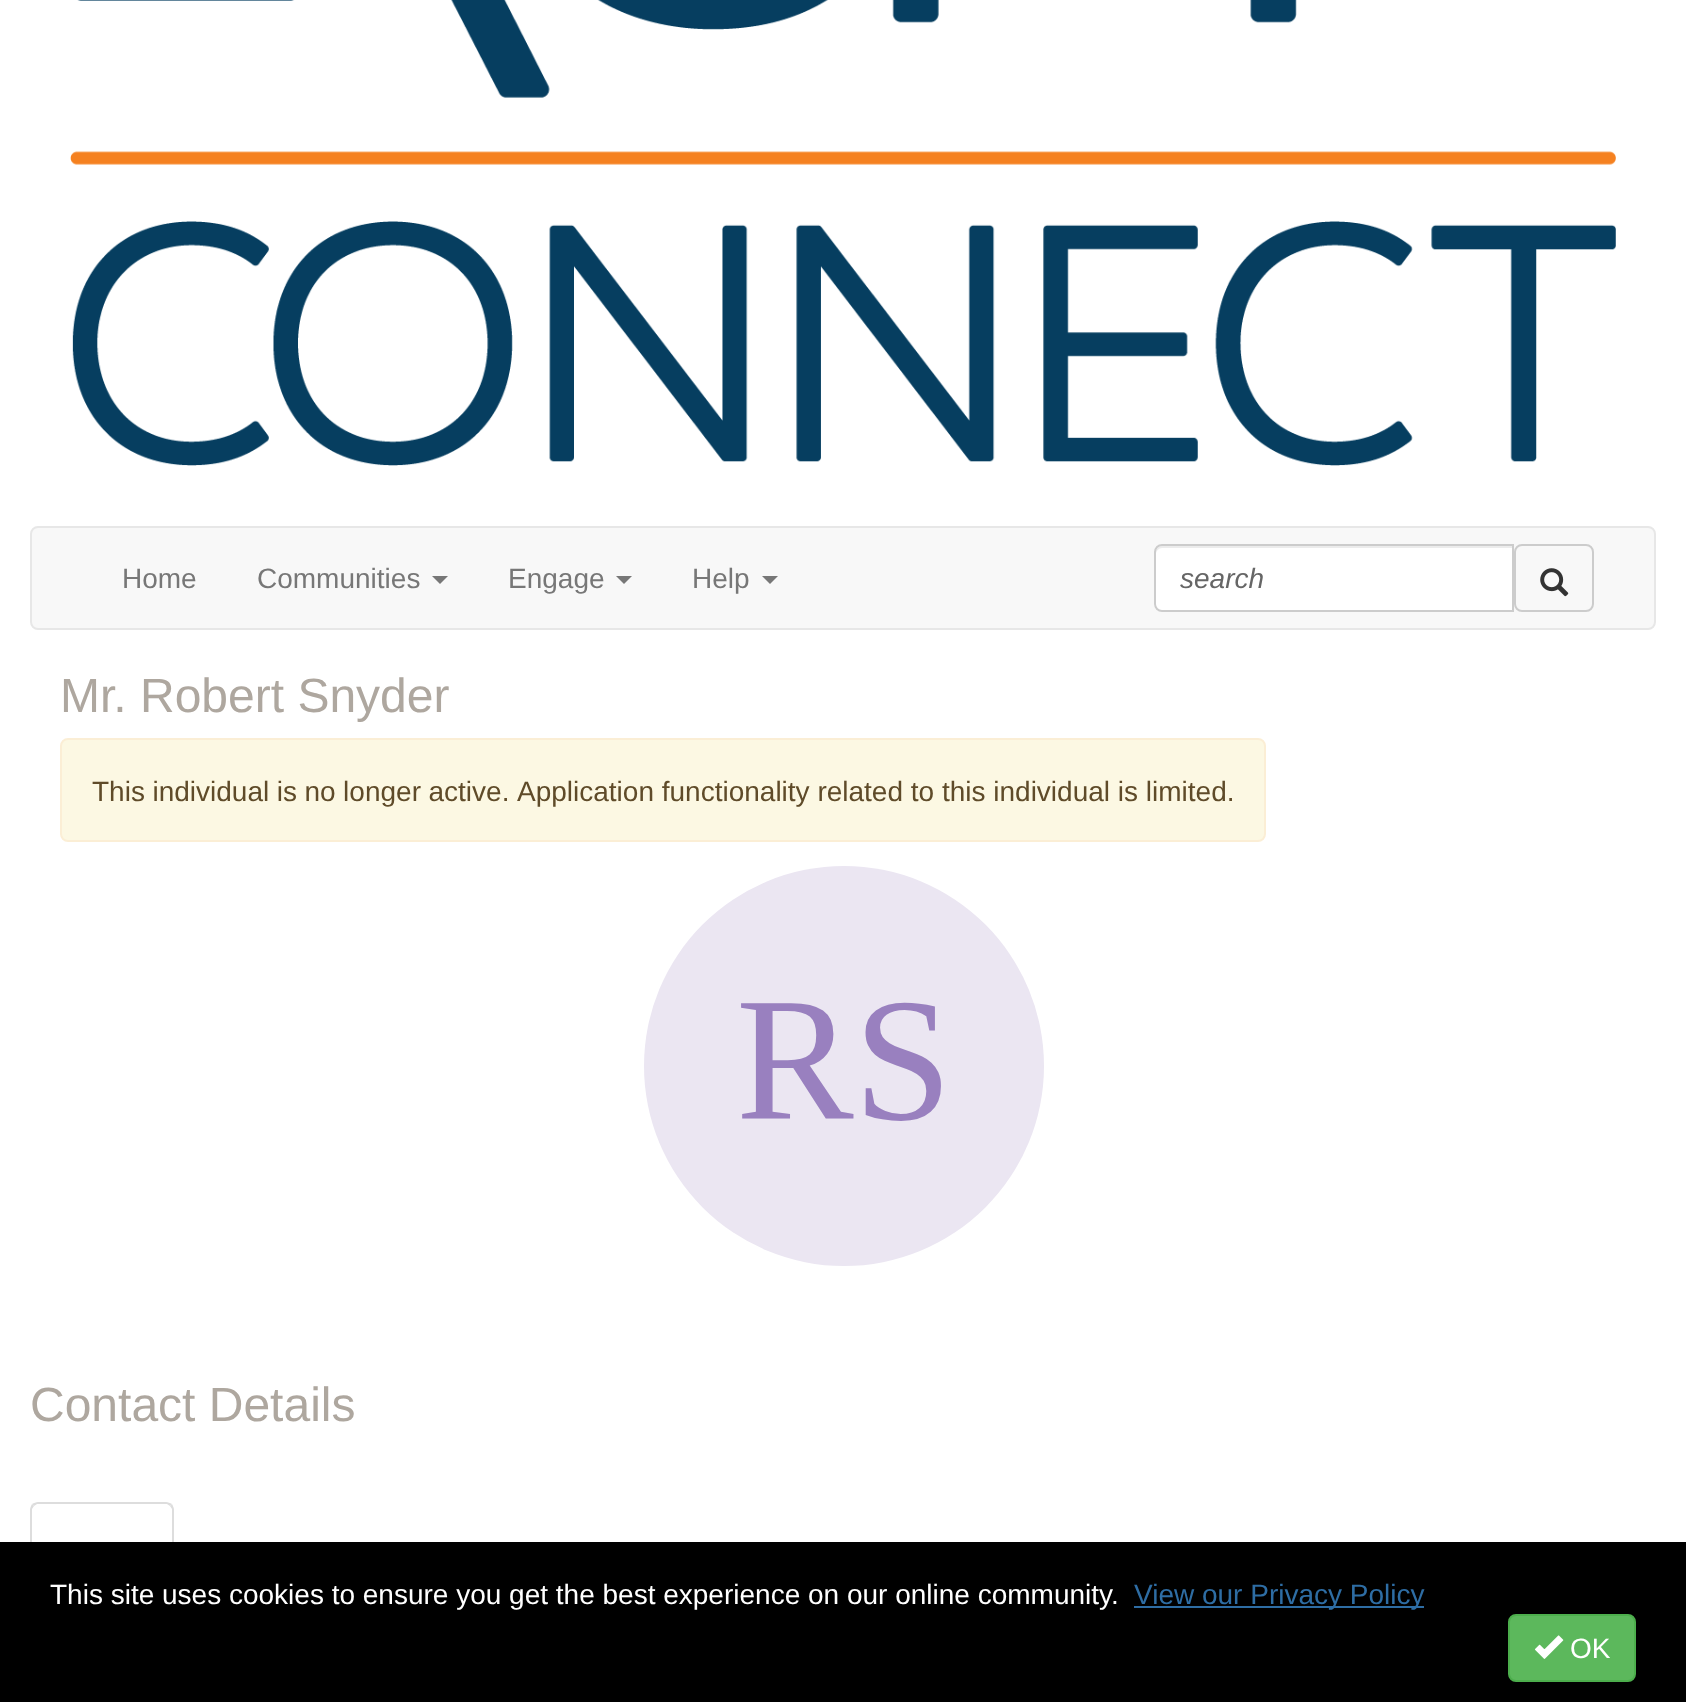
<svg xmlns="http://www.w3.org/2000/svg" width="1686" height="1702">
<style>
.a{font:28px Liberation Sans;fill:#777}
.b{font:italic 28px Liberation Sans;fill:#666}
.c{font:48px Liberation Sans;fill:#aea79f}
.d{font:28px Liberation Sans;fill:#5f4b29}
.e{font:28px Liberation Sans;fill:#fff}
.f{font:28px Liberation Sans;fill:#2e6da4}
</style>
<rect width="100%" height="100%" fill="#fff"/>
<image href="1.png" x="70" y="0" width="1546" height="466"/>
<rect fill="#f8f8f8" stroke="#e7e7e7" stroke-width="2" x="31" y="527" width="1624" height="102" rx="7"/>
<path fill="#777" d="M432 576h16l-8 8z"/>
<path fill="#777" d="M616 576h16l-8 8z"/>
<path fill="#777" d="M762 576h16l-8 8z"/>
<path fill="#fff" d="M1162 544h352v68h-352c-4.5 0-8-3.5-8-8v-52c0-4.5 3.5-8 8-8z"/>
<path fill="#ececec" d="M1162 548h350v-2h-350c-3 0-6 3-6 6v2c0-3 3-6 6-6z"/>
<path fill="none" stroke="#ccc" stroke-width="2" d="M1162 545h351v66h-351c-4 0-7-3-7-7v-52c0-4 3-7 7-7z"/>
<rect fill="none" stroke="#ccc" stroke-width="2" x="1515" y="545" width="78" height="66" rx="7"/>
<image href="2.png" x="1540" y="568" width="29" height="29"/>
<rect fill="#fcf8e3" stroke="#fbeed5" stroke-width="2" x="61" y="739" width="1204" height="102" rx="7"/>
<image href="3.png" x="644" y="866" width="400" height="400"/>
<path fill="#ddd" d="M38 1502c-2 0-4 1-6 2l2 2l3-2h130l3 2l2-2c-2-1-4-2-6-2z"/>
<path fill="#ddd" d="M174 1586v-76c0-2-1-4-2-6l-2 2l2 3v75z"/>
<path fill="#ddd" d="M30 1586l2-2v-75l2-3l-2-2c-1 2-2 4-2 6z"/>
<path fill="#000" d="M0 1542h1686v160H0z"/>
<path fill="#2e6da4" d="M1134 1606h290v2H1134z"/>
<rect fill="#5cb85c" stroke="#4cae4c" stroke-width="2" x="1509" y="1615" width="126" height="66" rx="7"/>
<image href="4.png" x="1534" y="1635" width="30" height="24"/>
<text class="a" x="122" y="588">Home</text>
<text class="a" x="257" y="588">Communities</text>
<text class="a" x="508" y="588">Engage</text>
<text class="a" x="692" y="588">Help</text>
<text class="b" x="1180" y="588">search</text>
<text class="c" x="60" y="712">Mr. Robert Snyder</text>
<text class="d" x="92" y="801" word-spacing="-0.25">This individual is no longer active.</text>
<text class="d" x="517" y="801">Application functionality related to this individual is limited.</text>
<text class="c" x="30" y="1421">Contact Details</text>
<text class="e" x="50" y="1604">This site uses cookies to ensure you get the best experience on our online community.</text>
<text class="f" x="1134" y="1604">View our Privacy Policy</text>
<text class="e" x="1570" y="1658">OK</text>
</svg>
